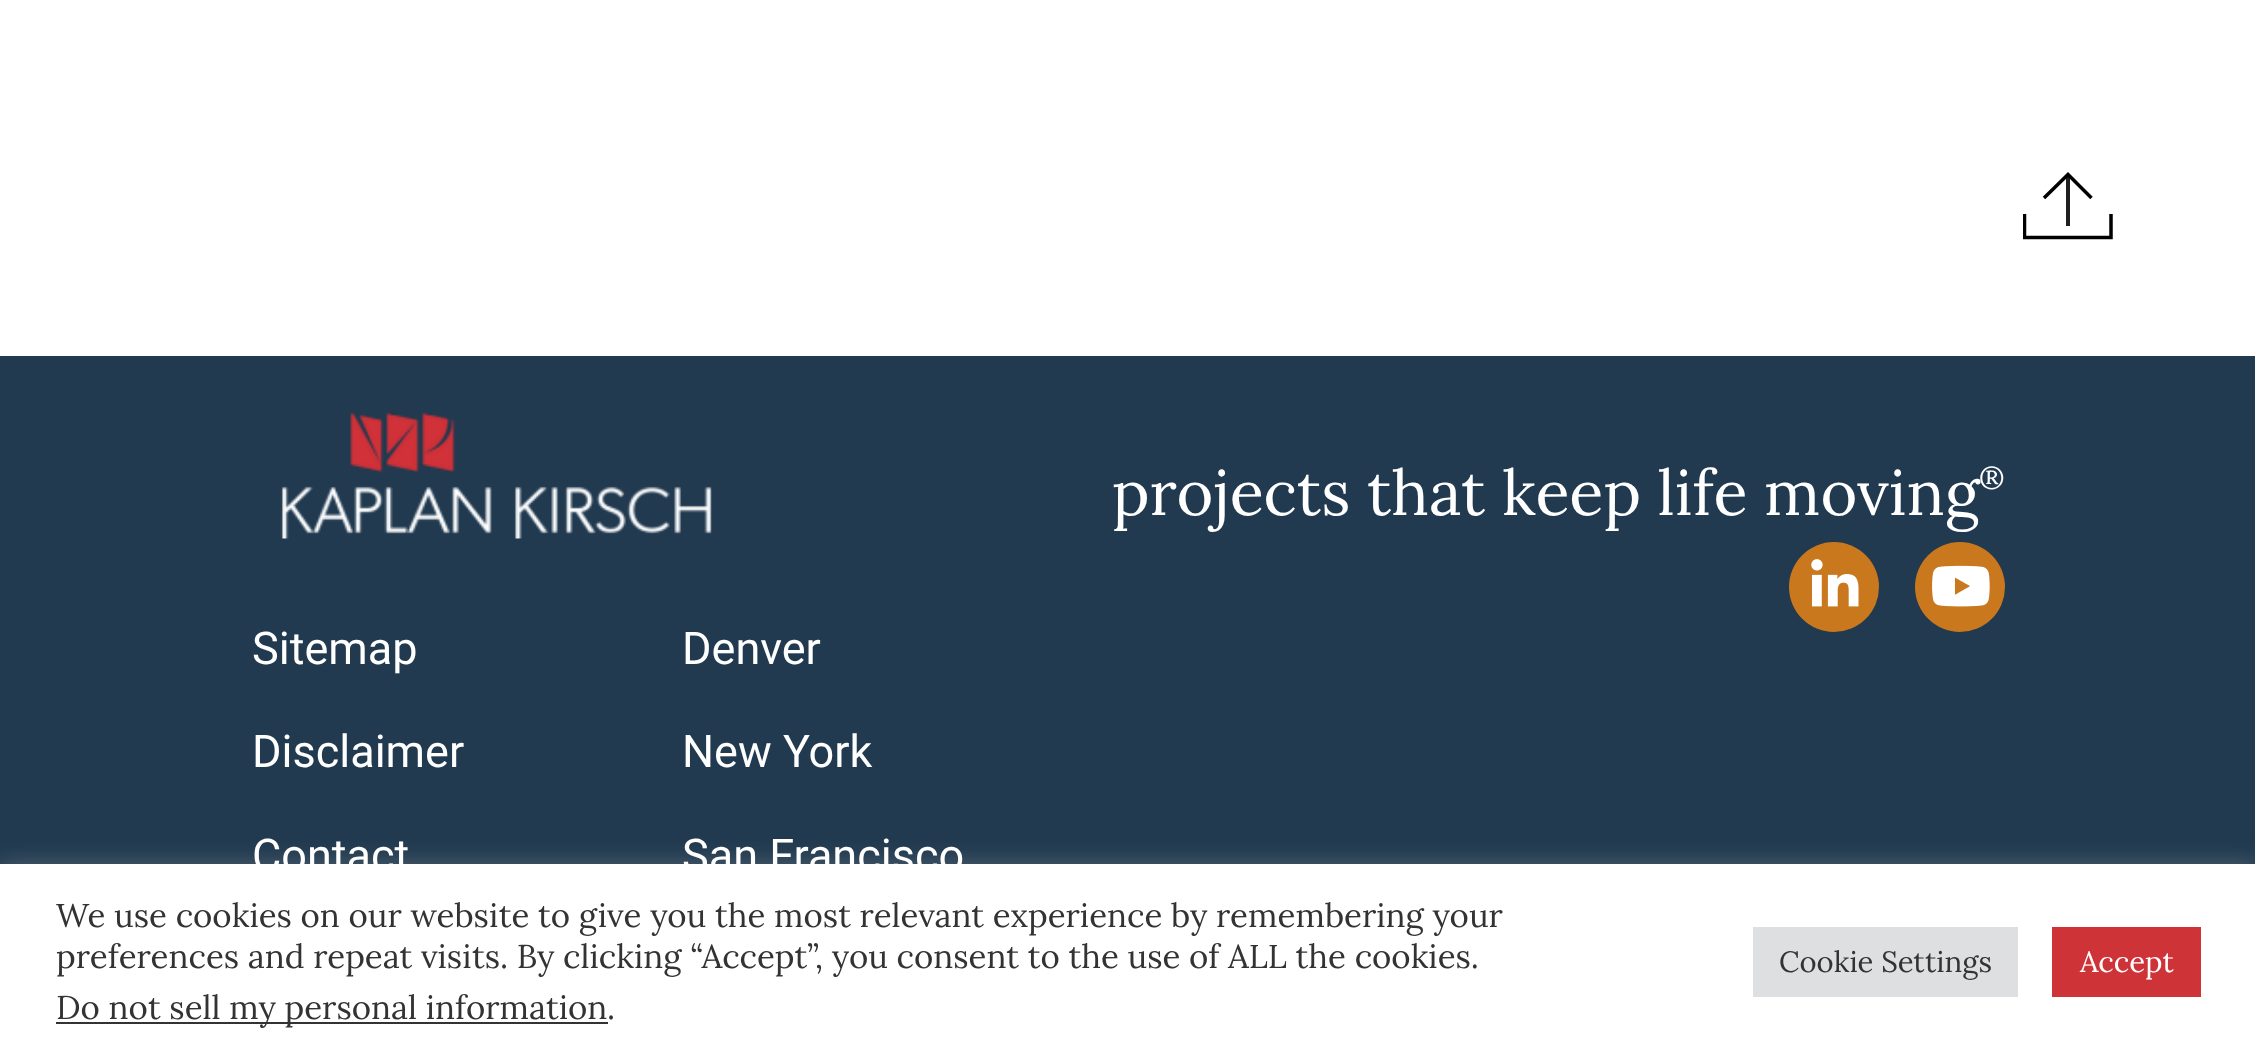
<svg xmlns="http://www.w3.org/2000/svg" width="2255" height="1059">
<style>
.a{font:63px Lora;fill:#fff}
.b{font:29px Lora;fill:#fff}
.c{font:45px Roboto;fill:#fff}
.d{font:33px Lora;fill:#333}
.e{font:29.25px Lora;fill:#333}
.f{font:29.25px Lora;fill:#fff}
</style>
<defs>
<clipPath id="clip1"><path d="M2023 162h90v86H2023z"/></clipPath>
</defs>
<rect width="100%" height="100%" fill="#fff"/>
<path fill="none" stroke="#000" stroke-width="3.5" d="M2044 198l24-23.5l23.5 23.5"/>
<g clip-path="url(#clip1)">
<path fill="none" stroke="#000" stroke-width="3.5" d="M2111 214v23.5h-86.5v-23.5"/>
</g>
<path fill="#000000e0" d="M2066 175h4v51H2066z"/>
<path fill="#213a50" d="M0 356h2255v508H0z"/>
<image href="1.png" x="280" y="412" width="432" height="127"/>
<circle fill="#c9781d" cx="1834" cy="587" r="45"/>
<image href="2.png" x="1811" y="559" width="48" height="48"/>
<circle fill="#c9781d" cx="1960" cy="587" r="45"/>
<image href="3.png" x="1932" y="565" width="58" height="42"/>
<path fill="#acabab4d" filter="blur(11px)" d="M0 862h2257v196H0z"/>
<path fill="#fff" d="M0 864h2255v195H0z"/>
<path fill="#333" d="M56 1022h552v2H56z"/>
<path fill="#dedfe0" d="M1753 927h265v70H1753z"/>
<path fill="#ce3338" d="M2052 927h149v70H2052z"/>
<text class="a" x="1112" y="515">projects that keep life moving</text>
<text class="b" x="1979" y="488">®</text>
<text class="c" x="252" y="664">Sitemap</text>
<text class="c" x="252" y="767">Disclaimer</text>
<text class="c" x="252" y="871">Contact</text>
<text class="c" x="682" y="664">Denver</text>
<text class="c" x="682" y="767">New York</text>
<text class="c" x="682" y="871">San Francisco</text>
<text class="d" x="56" y="927">We use cookies on our website to give you the most relevant experience by remembering your</text>
<text class="d" x="56" y="968">preferences and repeat visits. By clicking “Accept”, you consent to the use of ALL the cookies.</text>
<text class="d" x="56" y="1019">Do not sell my personal information</text>
<text class="d" x="607" y="1019">.</text>
<text class="e" x="1779" y="972">Cookie Settings</text>
<text class="f" x="2080" y="972">Accept</text>
</svg>
